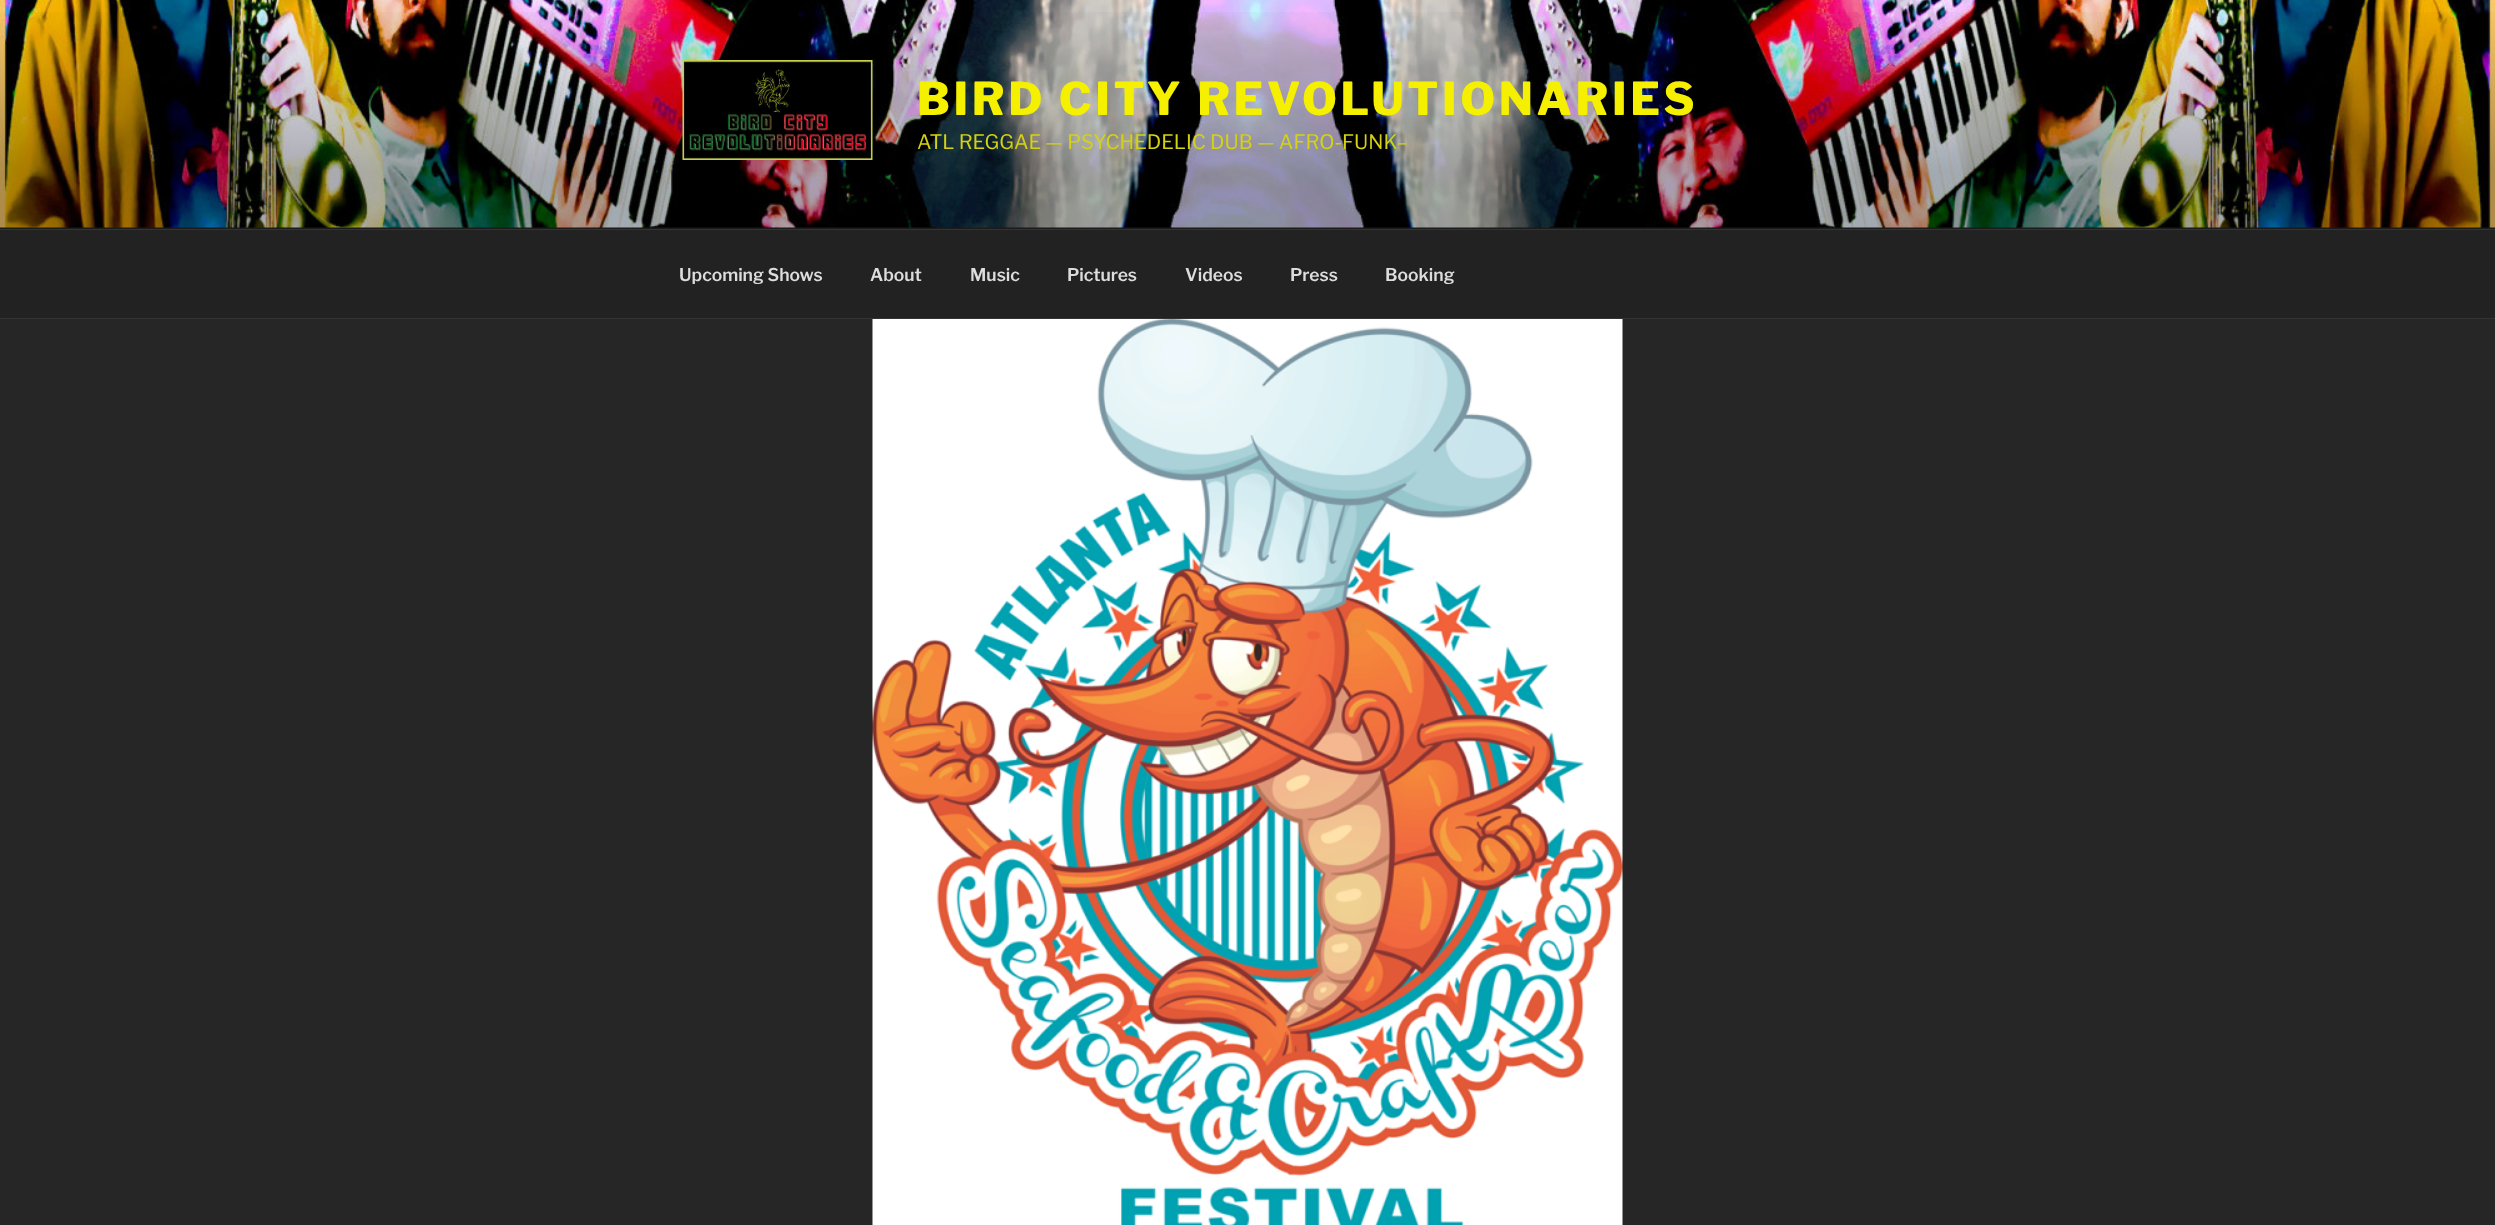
<svg xmlns="http://www.w3.org/2000/svg" width="2495" height="1225">
<style>
.a{font:800 45px Libre Franklin;letter-spacing:3.6px;fill:#f4f000}
.b{font:20px Libre Franklin;fill:#d4d213}
.c{font:600 17.5px Libre Franklin;fill:#ddd}
</style>
<defs>
<linearGradient id="g1" gradientUnits="userSpaceOnUse" x1="1248" y1="0" x2="1248" y2="229"><stop offset="0" stop-color="#000" stop-opacity="0"/><stop offset="0.75" stop-color="#000" stop-opacity="0.3"/><stop offset="1" stop-color="#000" stop-opacity="0.3"/></linearGradient>
</defs>
<rect width="100%" height="100%" fill="#262626"/>
<image href="1.png" x="0" y="0" width="2495" height="228"/>
<path fill="url(#g1)" d="M0 12h2495v217H0z"/>
<image href="2.png" x="682" y="60" width="191" height="100"/>
<path fill="#222" d="M0 230h2495v88H0z"/>
<path fill="#333" d="M0 229h2495v1H0z"/>
<path fill="#333" d="M0 318h2495v1H0z"/>
<image href="3.png" x="872" y="319" width="751" height="906"/>
<text class="a" x="917" y="115">BIRD CITY REVOLUTIONARIES</text>
<text class="b" x="917" y="149">ATL REGGAE — PSYCHEDELIC DUB — AFRO-FUNK–</text>
<text class="c" x="679" y="281">Upcoming Shows</text>
<text class="c" x="870" y="281">About</text>
<text class="c" x="970" y="281">Music</text>
<text class="c" x="1067" y="281">Pictures</text>
<text class="c" x="1185" y="281">Videos</text>
<text class="c" x="1290" y="281">Press</text>
<text class="c" x="1385" y="281">Booking</text>
</svg>
